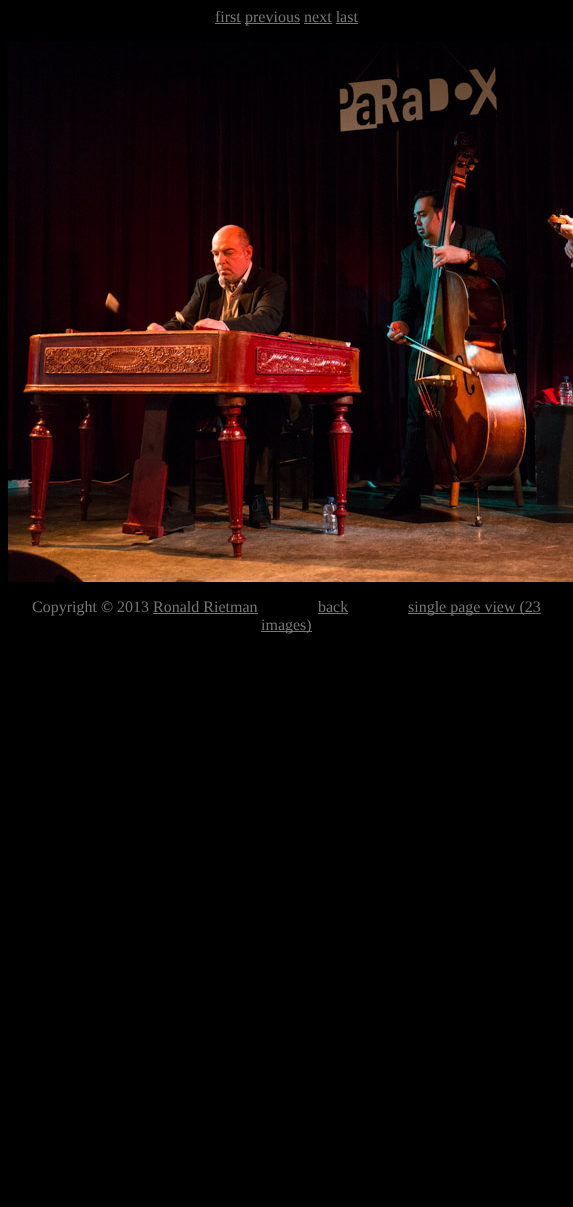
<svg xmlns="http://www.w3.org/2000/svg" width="573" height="1207">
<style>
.a{font:16px Liberation Serif;fill:#777}
</style>
<rect width="100%" height="100%" fill="#000"/>
<path fill="#777" d="M215 23h26v1H215z"/>
<path fill="#777" d="M245 23h55v1H245z"/>
<path fill="#777" d="M304 23h28v1H304z"/>
<path fill="#777" d="M336 23h22v1H336z"/>
<image href="1.png" x="8" y="42" width="565" height="540"/>
<path fill="#777" d="M318 613h30v1H318z"/>
<path fill="#777" d="M408 613h133v1H408z"/>
<path fill="#777" d="M153 613h105v1H153z"/>
<path fill="#777" d="M261 631h51v1H261z"/>
<text class="a" x="215" y="22">first</text>
<text class="a" x="245" y="22">previous next last</text>
<text class="a" x="32" y="612">Copyright © 2013 Ronald Rietman</text>
<text class="a" x="318" y="612">back</text>
<text class="a" x="408" y="612">single page view (23</text>
<text class="a" x="261" y="630">images)</text>
</svg>
